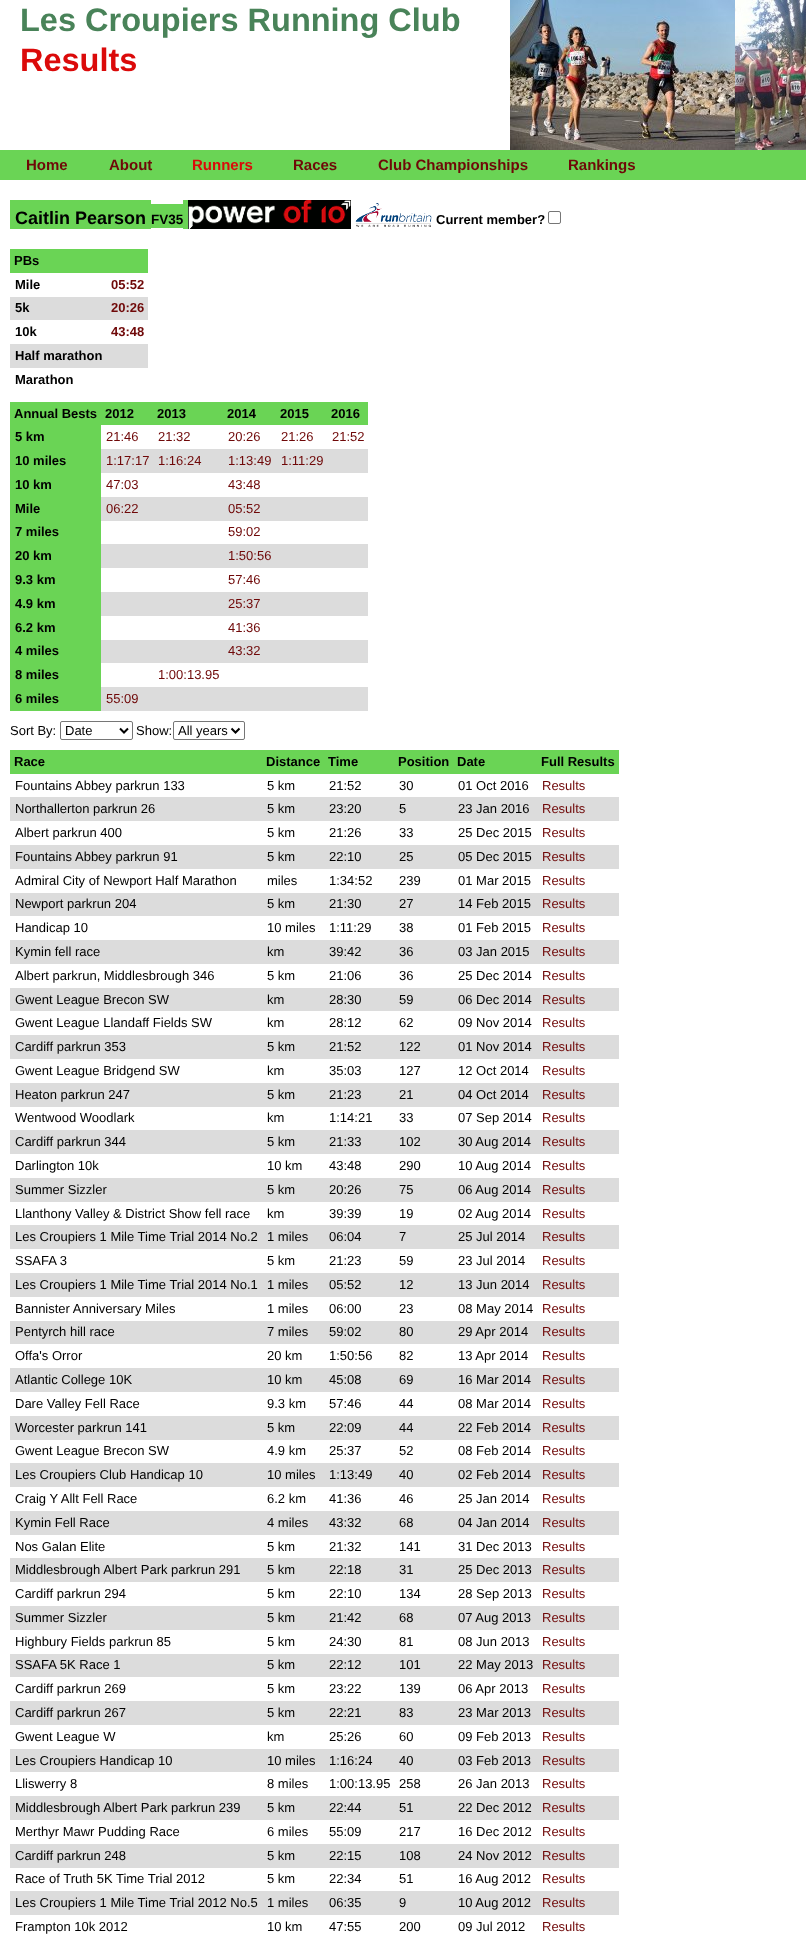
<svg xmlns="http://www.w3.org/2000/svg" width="806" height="1939">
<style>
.a{font:bold 32.5px Liberation Sans;fill:#498359}
.b{font:bold 32.5px Liberation Sans;fill:#db0a0a}
.c{font:bold 15px Liberation Sans;fill:#6f0808}
.d{font:bold 15px Liberation Sans;fill:#db0a0a}
.e{font:bold 18px Liberation Sans;fill:#000}
.f{font:bold 13.5px Liberation Sans;fill:#000}
.g{font:bold 13px Liberation Sans;fill:#000}
.h{font:bold 13px Liberation Sans;fill:#6f0808}
.i{font:13px Liberation Sans;fill:#6f0808}
.j{font:13px Liberation Sans;fill:#000}
</style>
<rect width="100%" height="100%" fill="#fff"/>
<image href="1.png" x="510" y="0" width="225" height="150"/>
<image href="2.png" x="735" y="0" width="71" height="150"/>
<path fill="#6ad455" d="M0 150h806v30H0z"/>
<path fill="#6ad455" d="M10 200h141v29H10z"/>
<path fill="#6ad455" d="M151 204h32v24H151z"/>
<path fill="#6ad455" d="M183 200h5v29H183z"/>
<image href="3.png" x="188" y="200" width="163" height="29"/>
<image href="4.png" x="355" y="203" width="77" height="24"/>
<rect fill="none" stroke="#767676" x="548.5" y="211.5" width="12" height="12" rx="1.5"/>
<path fill="#6ad455" d="M10 249h138v24H10z"/>
<path fill="#dcdcdc" d="M10 297h138v23H10z"/>
<path fill="#dcdcdc" d="M10 344h138v24H10z"/>
<path fill="#6ad455" d="M10 402h358v23H10z"/>
<path fill="#6ad455" d="M10 425h91v286H10z"/>
<path fill="#dcdcdc" d="M101 449h267v24H101z"/>
<path fill="#dcdcdc" d="M101 497h267v24H101z"/>
<path fill="#dcdcdc" d="M101 544h267v24H101z"/>
<path fill="#dcdcdc" d="M101 592h267v24H101z"/>
<path fill="#dcdcdc" d="M101 640h267v23H101z"/>
<path fill="#dcdcdc" d="M101 687h267v24H101z"/>
<rect fill="none" stroke="#767676" x="60.5" y="721.5" width="72" height="18" rx="1.5"/>
<path fill="none" stroke="#000" stroke-width="2" d="M120 728.5l4 4l4-4"/>
<rect fill="none" stroke="#767676" x="173.5" y="721.5" width="71" height="18" rx="1.5"/>
<path fill="none" stroke="#000" stroke-width="2" d="M231.5 728.5l4 4l4-4"/>
<path fill="#6ad455" d="M10 750h609v24H10z"/>
<path fill="#dcdcdc" d="M10 797h609v24H10z"/>
<path fill="#dcdcdc" d="M10 845h609v24H10z"/>
<path fill="#dcdcdc" d="M10 893h609v23H10z"/>
<path fill="#dcdcdc" d="M10 940h609v24H10z"/>
<path fill="#dcdcdc" d="M10 988h609v23H10z"/>
<path fill="#dcdcdc" d="M10 1035h609v24H10z"/>
<path fill="#dcdcdc" d="M10 1083h609v24H10z"/>
<path fill="#dcdcdc" d="M10 1130h609v24H10z"/>
<path fill="#dcdcdc" d="M10 1178h609v24H10z"/>
<path fill="#dcdcdc" d="M10 1225h609v24H10z"/>
<path fill="#dcdcdc" d="M10 1273h609v24H10z"/>
<path fill="#dcdcdc" d="M10 1321h609v23H10z"/>
<path fill="#dcdcdc" d="M10 1368h609v24H10z"/>
<path fill="#dcdcdc" d="M10 1416h609v24H10z"/>
<path fill="#dcdcdc" d="M10 1463h609v24H10z"/>
<path fill="#dcdcdc" d="M10 1511h609v24H10z"/>
<path fill="#dcdcdc" d="M10 1558h609v24H10z"/>
<path fill="#dcdcdc" d="M10 1606h609v24H10z"/>
<path fill="#dcdcdc" d="M10 1654h609v23H10z"/>
<path fill="#dcdcdc" d="M10 1701h609v24H10z"/>
<path fill="#dcdcdc" d="M10 1749h609v23H10z"/>
<path fill="#dcdcdc" d="M10 1796h609v24H10z"/>
<path fill="#dcdcdc" d="M10 1844h609v24H10z"/>
<path fill="#dcdcdc" d="M10 1891h609v24H10z"/>
<text class="a" x="20" y="31">Les Croupiers Running Club</text>
<text class="b" x="20" y="71">Results</text>
<text class="c" x="26" y="170">Home</text>
<text class="c" x="109" y="170">About</text>
<text class="d" x="192" y="170">Runners</text>
<text class="c" x="293" y="170">Races</text>
<text class="c" x="378" y="170">Club Championships</text>
<text class="c" x="568" y="170">Rankings</text>
<text class="e" x="15" y="224">Caitlin Pearson</text>
<text class="f" x="151" y="224">FV35</text>
<text class="g" x="436" y="224">Current member?</text>
<text class="g" x="14" y="265">PBs</text>
<text class="g" x="15" y="289">Mile</text>
<text class="h" x="111" y="289">05:52</text>
<text class="g" x="15" y="312">5k</text>
<text class="h" x="111" y="312">20:26</text>
<text class="g" x="15" y="336">10k</text>
<text class="h" x="111" y="336">43:48</text>
<text class="g" x="15" y="360">Half marathon</text>
<text class="g" x="15" y="384">Marathon</text>
<text class="g" x="14" y="418">Annual Bests</text>
<text class="g" x="105" y="418">2012</text>
<text class="g" x="157" y="418">2013</text>
<text class="g" x="227" y="418">2014</text>
<text class="g" x="280" y="418">2015</text>
<text class="g" x="331" y="418">2016</text>
<text class="g" x="15" y="441">5 km</text>
<text class="i" x="106" y="441">21:46</text>
<text class="i" x="158" y="441">21:32</text>
<text class="i" x="228" y="441">20:26</text>
<text class="i" x="281" y="441">21:26</text>
<text class="i" x="332" y="441">21:52</text>
<text class="g" x="15" y="465">10 miles</text>
<text class="i" x="106" y="465">1:17:17</text>
<text class="i" x="158" y="465">1:16:24</text>
<text class="i" x="228" y="465">1:13:49</text>
<text class="i" x="281" y="465">1:11:29</text>
<text class="g" x="15" y="489">10 km</text>
<text class="i" x="106" y="489">47:03</text>
<text class="i" x="228" y="489">43:48</text>
<text class="g" x="15" y="513">Mile</text>
<text class="i" x="106" y="513">06:22</text>
<text class="i" x="228" y="513">05:52</text>
<text class="g" x="15" y="536">7 miles</text>
<text class="i" x="228" y="536">59:02</text>
<text class="g" x="15" y="560">20 km</text>
<text class="i" x="228" y="560">1:50:56</text>
<text class="g" x="15" y="584">9.3 km</text>
<text class="i" x="228" y="584">57:46</text>
<text class="g" x="15" y="608">4.9 km</text>
<text class="i" x="228" y="608">25:37</text>
<text class="g" x="15" y="632">6.2 km</text>
<text class="i" x="228" y="632">41:36</text>
<text class="g" x="15" y="655">4 miles</text>
<text class="i" x="228" y="655">43:32</text>
<text class="g" x="15" y="679">8 miles</text>
<text class="i" x="158" y="679">1:00:13.95</text>
<text class="g" x="15" y="703">6 miles</text>
<text class="i" x="106" y="703">55:09</text>
<text class="j" x="10" y="735">Sort By:</text>
<text class="j" x="65" y="735">Date</text>
<text class="j" x="136" y="735">Show:</text>
<text class="j" x="178" y="735">All years</text>
<text class="g" x="14" y="766">Race</text>
<text class="g" x="266" y="766">Distance</text>
<text class="g" x="328" y="766">Time</text>
<text class="g" x="398" y="766">Position</text>
<text class="g" x="457" y="766">Date</text>
<text class="g" x="541" y="766">Full Results</text>
<text class="j" x="15" y="790">Fountains Abbey parkrun 133</text>
<text class="j" x="267" y="790">5 km</text>
<text class="j" x="329" y="790">21:52</text>
<text class="j" x="399" y="790">30</text>
<text class="j" x="458" y="790">01 Oct 2016</text>
<text class="i" x="542" y="790">Results</text>
<text class="j" x="15" y="813">Northallerton parkrun 26</text>
<text class="j" x="267" y="813">5 km</text>
<text class="j" x="329" y="813">23:20</text>
<text class="j" x="399" y="813">5</text>
<text class="j" x="458" y="813">23 Jan 2016</text>
<text class="i" x="542" y="813">Results</text>
<text class="j" x="15" y="837">Albert parkrun 400</text>
<text class="j" x="267" y="837">5 km</text>
<text class="j" x="329" y="837">21:26</text>
<text class="j" x="399" y="837">33</text>
<text class="j" x="458" y="837">25 Dec 2015</text>
<text class="i" x="542" y="837">Results</text>
<text class="j" x="15" y="861">Fountains Abbey parkrun 91</text>
<text class="j" x="267" y="861">5 km</text>
<text class="j" x="329" y="861">22:10</text>
<text class="j" x="399" y="861">25</text>
<text class="j" x="458" y="861">05 Dec 2015</text>
<text class="i" x="542" y="861">Results</text>
<text class="j" x="15" y="885">Admiral City of Newport Half Marathon</text>
<text class="j" x="267" y="885">miles</text>
<text class="j" x="329" y="885">1:34:52</text>
<text class="j" x="399" y="885">239</text>
<text class="j" x="458" y="885">01 Mar 2015</text>
<text class="i" x="542" y="885">Results</text>
<text class="j" x="15" y="908">Newport parkrun 204</text>
<text class="j" x="267" y="908">5 km</text>
<text class="j" x="329" y="908">21:30</text>
<text class="j" x="399" y="908">27</text>
<text class="j" x="458" y="908">14 Feb 2015</text>
<text class="i" x="542" y="908">Results</text>
<text class="j" x="15" y="932">Handicap 10</text>
<text class="j" x="267" y="932">10 miles</text>
<text class="j" x="329" y="932">1:11:29</text>
<text class="j" x="399" y="932">38</text>
<text class="j" x="458" y="932">01 Feb 2015</text>
<text class="i" x="542" y="932">Results</text>
<text class="j" x="15" y="956">Kymin fell race</text>
<text class="j" x="267" y="956">km</text>
<text class="j" x="329" y="956">39:42</text>
<text class="j" x="399" y="956">36</text>
<text class="j" x="458" y="956">03 Jan 2015</text>
<text class="i" x="542" y="956">Results</text>
<text class="j" x="15" y="980">Albert parkrun, Middlesbrough 346</text>
<text class="j" x="267" y="980">5 km</text>
<text class="j" x="329" y="980">21:06</text>
<text class="j" x="399" y="980">36</text>
<text class="j" x="458" y="980">25 Dec 2014</text>
<text class="i" x="542" y="980">Results</text>
<text class="j" x="15" y="1004">Gwent League Brecon SW</text>
<text class="j" x="267" y="1004">km</text>
<text class="j" x="329" y="1004">28:30</text>
<text class="j" x="399" y="1004">59</text>
<text class="j" x="458" y="1004">06 Dec 2014</text>
<text class="i" x="542" y="1004">Results</text>
<text class="j" x="15" y="1027">Gwent League Llandaff Fields SW</text>
<text class="j" x="267" y="1027">km</text>
<text class="j" x="329" y="1027">28:12</text>
<text class="j" x="399" y="1027">62</text>
<text class="j" x="458" y="1027">09 Nov 2014</text>
<text class="i" x="542" y="1027">Results</text>
<text class="j" x="15" y="1051">Cardiff parkrun 353</text>
<text class="j" x="267" y="1051">5 km</text>
<text class="j" x="329" y="1051">21:52</text>
<text class="j" x="399" y="1051">122</text>
<text class="j" x="458" y="1051">01 Nov 2014</text>
<text class="i" x="542" y="1051">Results</text>
<text class="j" x="15" y="1075">Gwent League Bridgend SW</text>
<text class="j" x="267" y="1075">km</text>
<text class="j" x="329" y="1075">35:03</text>
<text class="j" x="399" y="1075">127</text>
<text class="j" x="458" y="1075">12 Oct 2014</text>
<text class="i" x="542" y="1075">Results</text>
<text class="j" x="15" y="1099">Heaton parkrun 247</text>
<text class="j" x="267" y="1099">5 km</text>
<text class="j" x="329" y="1099">21:23</text>
<text class="j" x="399" y="1099">21</text>
<text class="j" x="458" y="1099">04 Oct 2014</text>
<text class="i" x="542" y="1099">Results</text>
<text class="j" x="15" y="1122">Wentwood Woodlark</text>
<text class="j" x="267" y="1122">km</text>
<text class="j" x="329" y="1122">1:14:21</text>
<text class="j" x="399" y="1122">33</text>
<text class="j" x="458" y="1122">07 Sep 2014</text>
<text class="i" x="542" y="1122">Results</text>
<text class="j" x="15" y="1146">Cardiff parkrun 344</text>
<text class="j" x="267" y="1146">5 km</text>
<text class="j" x="329" y="1146">21:33</text>
<text class="j" x="399" y="1146">102</text>
<text class="j" x="458" y="1146">30 Aug 2014</text>
<text class="i" x="542" y="1146">Results</text>
<text class="j" x="15" y="1170">Darlington 10k</text>
<text class="j" x="267" y="1170">10 km</text>
<text class="j" x="329" y="1170">43:48</text>
<text class="j" x="399" y="1170">290</text>
<text class="j" x="458" y="1170">10 Aug 2014</text>
<text class="i" x="542" y="1170">Results</text>
<text class="j" x="15" y="1194">Summer Sizzler</text>
<text class="j" x="267" y="1194">5 km</text>
<text class="j" x="329" y="1194">20:26</text>
<text class="j" x="399" y="1194">75</text>
<text class="j" x="458" y="1194">06 Aug 2014</text>
<text class="i" x="542" y="1194">Results</text>
<text class="j" x="15" y="1218">Llanthony Valley &amp; District Show fell race</text>
<text class="j" x="267" y="1218">km</text>
<text class="j" x="329" y="1218">39:39</text>
<text class="j" x="399" y="1218">19</text>
<text class="j" x="458" y="1218">02 Aug 2014</text>
<text class="i" x="542" y="1218">Results</text>
<text class="j" x="15" y="1241">Les Croupiers 1 Mile Time Trial 2014 No.2</text>
<text class="j" x="267" y="1241">1 miles</text>
<text class="j" x="329" y="1241">06:04</text>
<text class="j" x="399" y="1241">7</text>
<text class="j" x="458" y="1241">25 Jul 2014</text>
<text class="i" x="542" y="1241">Results</text>
<text class="j" x="15" y="1265">SSAFA 3</text>
<text class="j" x="267" y="1265">5 km</text>
<text class="j" x="329" y="1265">21:23</text>
<text class="j" x="399" y="1265">59</text>
<text class="j" x="458" y="1265">23 Jul 2014</text>
<text class="i" x="542" y="1265">Results</text>
<text class="j" x="15" y="1289">Les Croupiers 1 Mile Time Trial 2014 No.1</text>
<text class="j" x="267" y="1289">1 miles</text>
<text class="j" x="329" y="1289">05:52</text>
<text class="j" x="399" y="1289">12</text>
<text class="j" x="458" y="1289">13 Jun 2014</text>
<text class="i" x="542" y="1289">Results</text>
<text class="j" x="15" y="1313">Bannister Anniversary Miles</text>
<text class="j" x="267" y="1313">1 miles</text>
<text class="j" x="329" y="1313">06:00</text>
<text class="j" x="399" y="1313">23</text>
<text class="j" x="458" y="1313">08 May 2014</text>
<text class="i" x="542" y="1313">Results</text>
<text class="j" x="15" y="1336">Pentyrch hill race</text>
<text class="j" x="267" y="1336">7 miles</text>
<text class="j" x="329" y="1336">59:02</text>
<text class="j" x="399" y="1336">80</text>
<text class="j" x="458" y="1336">29 Apr 2014</text>
<text class="i" x="542" y="1336">Results</text>
<text class="j" x="15" y="1360">Offa's Orror</text>
<text class="j" x="267" y="1360">20 km</text>
<text class="j" x="329" y="1360">1:50:56</text>
<text class="j" x="399" y="1360">82</text>
<text class="j" x="458" y="1360">13 Apr 2014</text>
<text class="i" x="542" y="1360">Results</text>
<text class="j" x="15" y="1384">Atlantic College 10K</text>
<text class="j" x="267" y="1384">10 km</text>
<text class="j" x="329" y="1384">45:08</text>
<text class="j" x="399" y="1384">69</text>
<text class="j" x="458" y="1384">16 Mar 2014</text>
<text class="i" x="542" y="1384">Results</text>
<text class="j" x="15" y="1408">Dare Valley Fell Race</text>
<text class="j" x="267" y="1408">9.3 km</text>
<text class="j" x="329" y="1408">57:46</text>
<text class="j" x="399" y="1408">44</text>
<text class="j" x="458" y="1408">08 Mar 2014</text>
<text class="i" x="542" y="1408">Results</text>
<text class="j" x="15" y="1432">Worcester parkrun 141</text>
<text class="j" x="267" y="1432">5 km</text>
<text class="j" x="329" y="1432">22:09</text>
<text class="j" x="399" y="1432">44</text>
<text class="j" x="458" y="1432">22 Feb 2014</text>
<text class="i" x="542" y="1432">Results</text>
<text class="j" x="15" y="1455">Gwent League Brecon SW</text>
<text class="j" x="267" y="1455">4.9 km</text>
<text class="j" x="329" y="1455">25:37</text>
<text class="j" x="399" y="1455">52</text>
<text class="j" x="458" y="1455">08 Feb 2014</text>
<text class="i" x="542" y="1455">Results</text>
<text class="j" x="15" y="1479">Les Croupiers Club Handicap 10</text>
<text class="j" x="267" y="1479">10 miles</text>
<text class="j" x="329" y="1479">1:13:49</text>
<text class="j" x="399" y="1479">40</text>
<text class="j" x="458" y="1479">02 Feb 2014</text>
<text class="i" x="542" y="1479">Results</text>
<text class="j" x="15" y="1503">Craig Y Allt Fell Race</text>
<text class="j" x="267" y="1503">6.2 km</text>
<text class="j" x="329" y="1503">41:36</text>
<text class="j" x="399" y="1503">46</text>
<text class="j" x="458" y="1503">25 Jan 2014</text>
<text class="i" x="542" y="1503">Results</text>
<text class="j" x="15" y="1527">Kymin Fell Race</text>
<text class="j" x="267" y="1527">4 miles</text>
<text class="j" x="329" y="1527">43:32</text>
<text class="j" x="399" y="1527">68</text>
<text class="j" x="458" y="1527">04 Jan 2014</text>
<text class="i" x="542" y="1527">Results</text>
<text class="j" x="15" y="1551">Nos Galan Elite</text>
<text class="j" x="267" y="1551">5 km</text>
<text class="j" x="329" y="1551">21:32</text>
<text class="j" x="399" y="1551">141</text>
<text class="j" x="458" y="1551">31 Dec 2013</text>
<text class="i" x="542" y="1551">Results</text>
<text class="j" x="15" y="1574">Middlesbrough Albert Park parkrun 291</text>
<text class="j" x="267" y="1574">5 km</text>
<text class="j" x="329" y="1574">22:18</text>
<text class="j" x="399" y="1574">31</text>
<text class="j" x="458" y="1574">25 Dec 2013</text>
<text class="i" x="542" y="1574">Results</text>
<text class="j" x="15" y="1598">Cardiff parkrun 294</text>
<text class="j" x="267" y="1598">5 km</text>
<text class="j" x="329" y="1598">22:10</text>
<text class="j" x="399" y="1598">134</text>
<text class="j" x="458" y="1598">28 Sep 2013</text>
<text class="i" x="542" y="1598">Results</text>
<text class="j" x="15" y="1622">Summer Sizzler</text>
<text class="j" x="267" y="1622">5 km</text>
<text class="j" x="329" y="1622">21:42</text>
<text class="j" x="399" y="1622">68</text>
<text class="j" x="458" y="1622">07 Aug 2013</text>
<text class="i" x="542" y="1622">Results</text>
<text class="j" x="15" y="1646">Highbury Fields parkrun 85</text>
<text class="j" x="267" y="1646">5 km</text>
<text class="j" x="329" y="1646">24:30</text>
<text class="j" x="399" y="1646">81</text>
<text class="j" x="458" y="1646">08 Jun 2013</text>
<text class="i" x="542" y="1646">Results</text>
<text class="j" x="15" y="1669">SSAFA 5K Race 1</text>
<text class="j" x="267" y="1669">5 km</text>
<text class="j" x="329" y="1669">22:12</text>
<text class="j" x="399" y="1669">101</text>
<text class="j" x="458" y="1669">22 May 2013</text>
<text class="i" x="542" y="1669">Results</text>
<text class="j" x="15" y="1693">Cardiff parkrun 269</text>
<text class="j" x="267" y="1693">5 km</text>
<text class="j" x="329" y="1693">23:22</text>
<text class="j" x="399" y="1693">139</text>
<text class="j" x="458" y="1693">06 Apr 2013</text>
<text class="i" x="542" y="1693">Results</text>
<text class="j" x="15" y="1717">Cardiff parkrun 267</text>
<text class="j" x="267" y="1717">5 km</text>
<text class="j" x="329" y="1717">22:21</text>
<text class="j" x="399" y="1717">83</text>
<text class="j" x="458" y="1717">23 Mar 2013</text>
<text class="i" x="542" y="1717">Results</text>
<text class="j" x="15" y="1741">Gwent League W</text>
<text class="j" x="267" y="1741">km</text>
<text class="j" x="329" y="1741">25:26</text>
<text class="j" x="399" y="1741">60</text>
<text class="j" x="458" y="1741">09 Feb 2013</text>
<text class="i" x="542" y="1741">Results</text>
<text class="j" x="15" y="1765">Les Croupiers Handicap 10</text>
<text class="j" x="267" y="1765">10 miles</text>
<text class="j" x="329" y="1765">1:16:24</text>
<text class="j" x="399" y="1765">40</text>
<text class="j" x="458" y="1765">03 Feb 2013</text>
<text class="i" x="542" y="1765">Results</text>
<text class="j" x="15" y="1788">Lliswerry 8</text>
<text class="j" x="267" y="1788">8 miles</text>
<text class="j" x="329" y="1788">1:00:13.95</text>
<text class="j" x="399" y="1788">258</text>
<text class="j" x="458" y="1788">26 Jan 2013</text>
<text class="i" x="542" y="1788">Results</text>
<text class="j" x="15" y="1812">Middlesbrough Albert Park parkrun 239</text>
<text class="j" x="267" y="1812">5 km</text>
<text class="j" x="329" y="1812">22:44</text>
<text class="j" x="399" y="1812">51</text>
<text class="j" x="458" y="1812">22 Dec 2012</text>
<text class="i" x="542" y="1812">Results</text>
<text class="j" x="15" y="1836">Merthyr Mawr Pudding Race</text>
<text class="j" x="267" y="1836">6 miles</text>
<text class="j" x="329" y="1836">55:09</text>
<text class="j" x="399" y="1836">217</text>
<text class="j" x="458" y="1836">16 Dec 2012</text>
<text class="i" x="542" y="1836">Results</text>
<text class="j" x="15" y="1860">Cardiff parkrun 248</text>
<text class="j" x="267" y="1860">5 km</text>
<text class="j" x="329" y="1860">22:15</text>
<text class="j" x="399" y="1860">108</text>
<text class="j" x="458" y="1860">24 Nov 2012</text>
<text class="i" x="542" y="1860">Results</text>
<text class="j" x="15" y="1883">Race of Truth 5K Time Trial 2012</text>
<text class="j" x="267" y="1883">5 km</text>
<text class="j" x="329" y="1883">22:34</text>
<text class="j" x="399" y="1883">51</text>
<text class="j" x="458" y="1883">16 Aug 2012</text>
<text class="i" x="542" y="1883">Results</text>
<text class="j" x="15" y="1907">Les Croupiers 1 Mile Time Trial 2012 No.5</text>
<text class="j" x="267" y="1907">1 miles</text>
<text class="j" x="329" y="1907">06:35</text>
<text class="j" x="399" y="1907">9</text>
<text class="j" x="458" y="1907">10 Aug 2012</text>
<text class="i" x="542" y="1907">Results</text>
<text class="j" x="15" y="1931">Frampton 10k 2012</text>
<text class="j" x="267" y="1931">10 km</text>
<text class="j" x="329" y="1931">47:55</text>
<text class="j" x="399" y="1931">200</text>
<text class="j" x="458" y="1931">09 Jul 2012</text>
<text class="i" x="542" y="1931">Results</text>
</svg>
